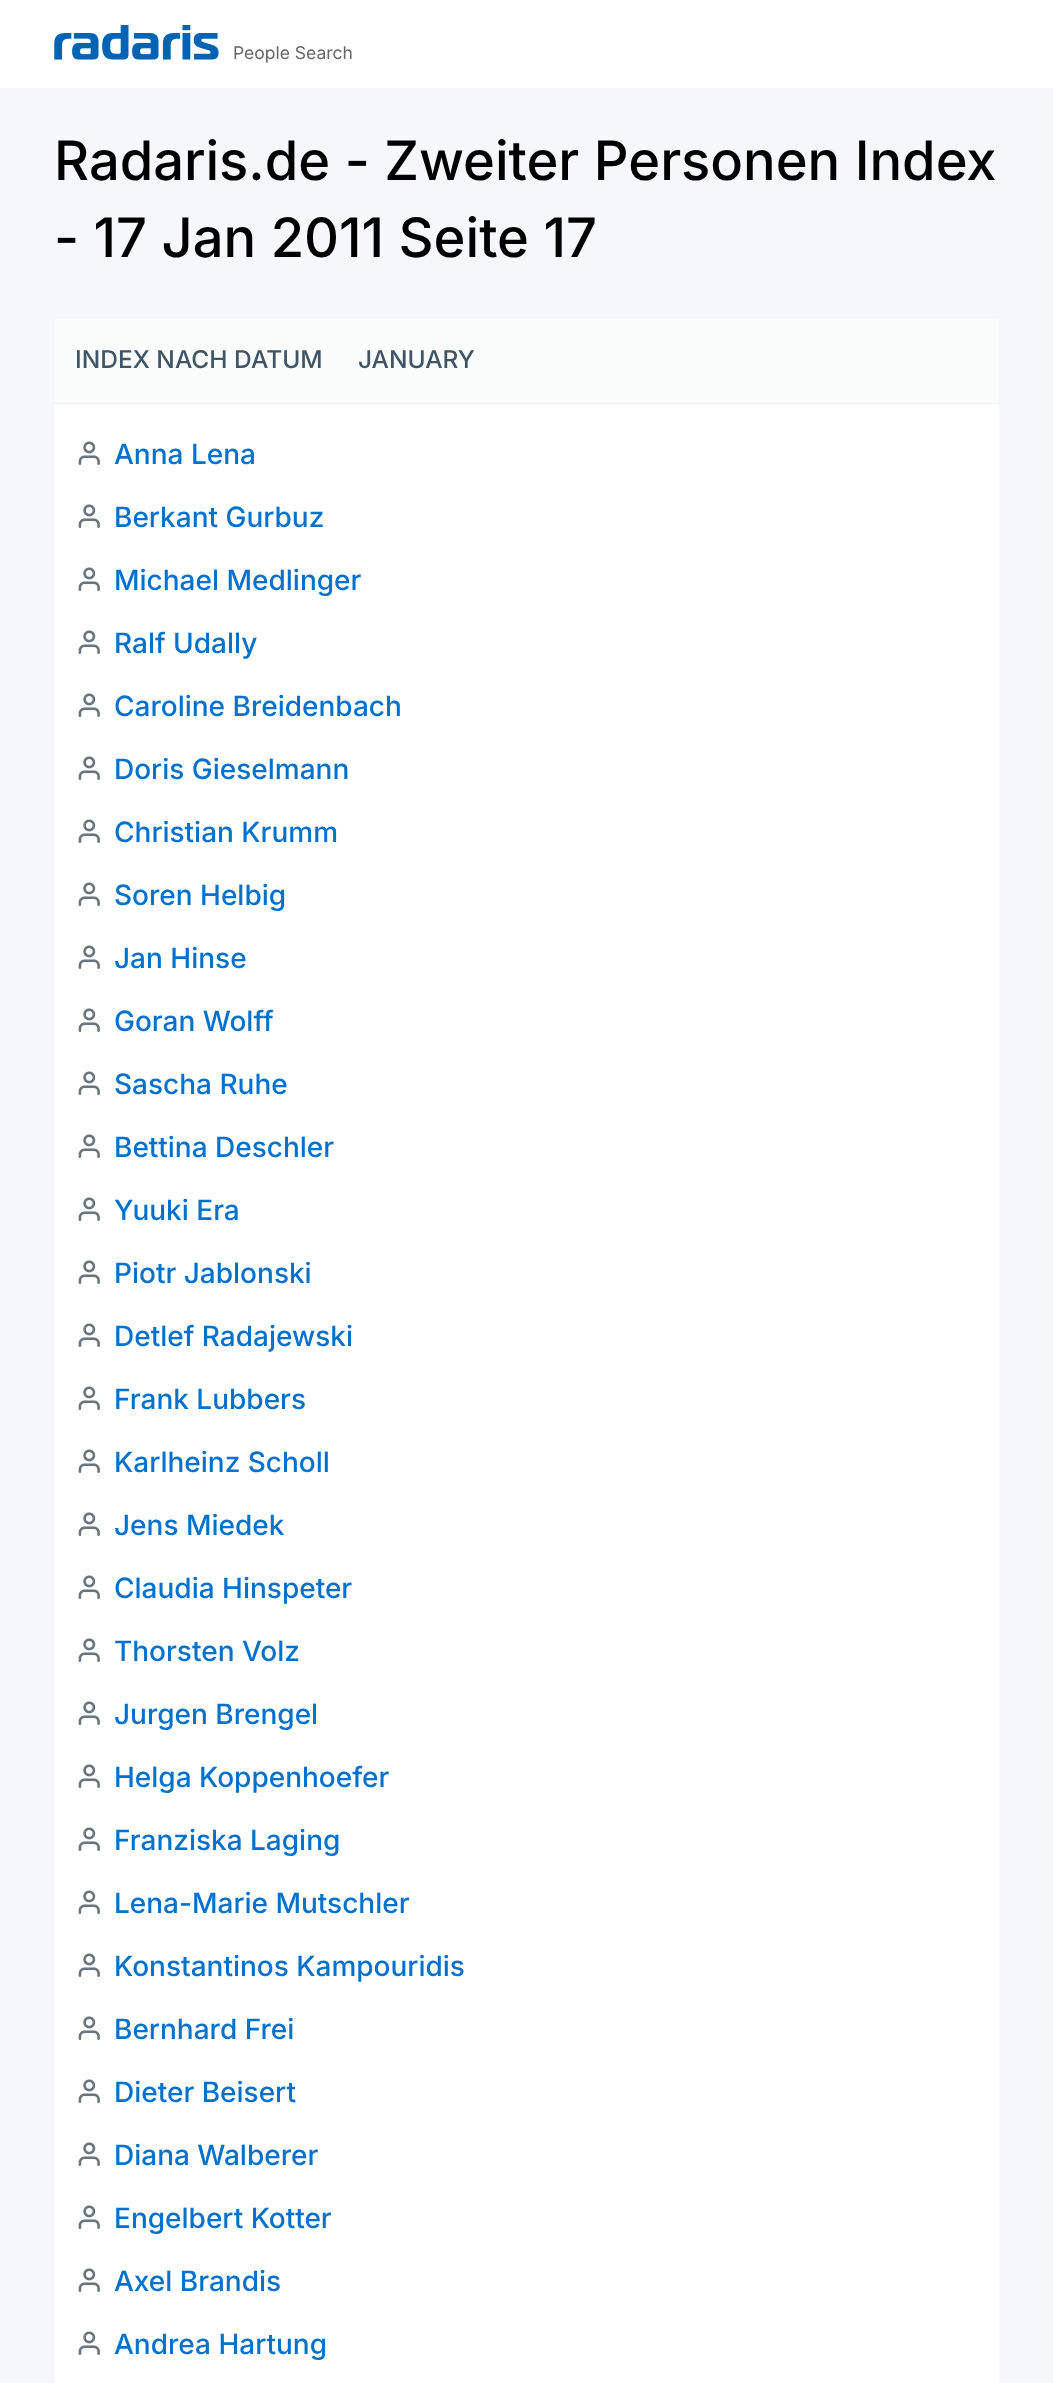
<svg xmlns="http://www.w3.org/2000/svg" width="1053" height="2383">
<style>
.a{font:17.5px Inter;fill:#666}
.b{font:500 54.25px Inter;fill:#000}
.c{font:500 24.5px Inter;fill:#3f5464}
.d{font:500 28px Inter;fill:#0071cc}
</style>
<rect width="100%" height="100%" fill="#f5f7f8"/>
<path fill="#fff" d="M0 0h1053v88H0z"/>
<image href="1.png" x="54" y="25" width="165" height="35"/>
<path fill="#fafbfb" d="M54 319h945v84H54z"/>
<path fill="#eff2f5" d="M54 403h945v1H54z"/>
<path fill="#fff" d="M54 404h945v1979H54z"/>
<image href="2.png" x="78" y="441" width="22" height="24"/>
<image href="2.png" x="78" y="504" width="22" height="24"/>
<image href="2.png" x="78" y="567" width="22" height="24"/>
<image href="2.png" x="78" y="630" width="22" height="24"/>
<image href="2.png" x="78" y="693" width="22" height="24"/>
<image href="2.png" x="78" y="756" width="22" height="24"/>
<image href="2.png" x="78" y="819" width="22" height="24"/>
<image href="2.png" x="78" y="882" width="22" height="24"/>
<image href="2.png" x="78" y="945" width="22" height="24"/>
<image href="2.png" x="78" y="1008" width="22" height="24"/>
<image href="2.png" x="78" y="1071" width="22" height="24"/>
<image href="2.png" x="78" y="1134" width="22" height="24"/>
<image href="2.png" x="78" y="1197" width="22" height="24"/>
<image href="2.png" x="78" y="1260" width="22" height="24"/>
<image href="2.png" x="78" y="1323" width="22" height="24"/>
<image href="2.png" x="78" y="1386" width="22" height="24"/>
<image href="2.png" x="78" y="1449" width="22" height="24"/>
<image href="2.png" x="78" y="1512" width="22" height="24"/>
<image href="2.png" x="78" y="1575" width="22" height="24"/>
<image href="2.png" x="78" y="1638" width="22" height="24"/>
<image href="2.png" x="78" y="1701" width="22" height="24"/>
<image href="2.png" x="78" y="1764" width="22" height="24"/>
<image href="2.png" x="78" y="1827" width="22" height="24"/>
<image href="2.png" x="78" y="1890" width="22" height="24"/>
<image href="2.png" x="78" y="1953" width="22" height="24"/>
<image href="2.png" x="78" y="2016" width="22" height="24"/>
<image href="2.png" x="78" y="2079" width="22" height="24"/>
<image href="2.png" x="78" y="2142" width="22" height="24"/>
<image href="2.png" x="78" y="2205" width="22" height="24"/>
<image href="2.png" x="78" y="2268" width="22" height="24"/>
<image href="2.png" x="78" y="2331" width="22" height="24"/>
<text class="a" x="233" y="59">People Search</text>
<text class="b" x="54" y="180">Radaris.de - Zweiter Personen Index</text>
<text class="b" x="54" y="257">- 17 Jan 2011 Seite 17</text>
<text class="c" x="75" y="368">INDEX NACH DATUM</text>
<text class="c" x="358" y="368">JANUARY</text>
<text class="d" x="114" y="464">Anna Lena</text>
<text class="d" x="114" y="527">Berkant Gurbuz</text>
<text class="d" x="114" y="590">Michael Medlinger</text>
<text class="d" x="114" y="653">Ralf Udally</text>
<text class="d" x="114" y="716">Caroline Breidenbach</text>
<text class="d" x="114" y="779">Doris Gieselmann</text>
<text class="d" x="114" y="842">Christian Krumm</text>
<text class="d" x="114" y="905">Soren Helbig</text>
<text class="d" x="114" y="968">Jan Hinse</text>
<text class="d" x="114" y="1031">Goran Wolff</text>
<text class="d" x="114" y="1094">Sascha Ruhe</text>
<text class="d" x="114" y="1157">Bettina Deschler</text>
<text class="d" x="114" y="1220">Yuuki Era</text>
<text class="d" x="114" y="1283">Piotr Jablonski</text>
<text class="d" x="114" y="1346">Detlef Radajewski</text>
<text class="d" x="114" y="1409">Frank Lubbers</text>
<text class="d" x="114" y="1472">Karlheinz Scholl</text>
<text class="d" x="114" y="1535">Jens Miedek</text>
<text class="d" x="114" y="1598">Claudia Hinspeter</text>
<text class="d" x="114" y="1661">Thorsten Volz</text>
<text class="d" x="114" y="1724">Jurgen Brengel</text>
<text class="d" x="114" y="1787">Helga Koppenhoefer</text>
<text class="d" x="114" y="1850">Franziska Laging</text>
<text class="d" x="114" y="1913">Lena-Marie Mutschler</text>
<text class="d" x="114" y="1976">Konstantinos Kampouridis</text>
<text class="d" x="114" y="2039">Bernhard Frei</text>
<text class="d" x="114" y="2102">Dieter Beisert</text>
<text class="d" x="114" y="2165">Diana Walberer</text>
<text class="d" x="114" y="2228">Engelbert Kotter</text>
<text class="d" x="114" y="2291">Axel Brandis</text>
<text class="d" x="114" y="2354">Andrea Hartung</text>
</svg>
